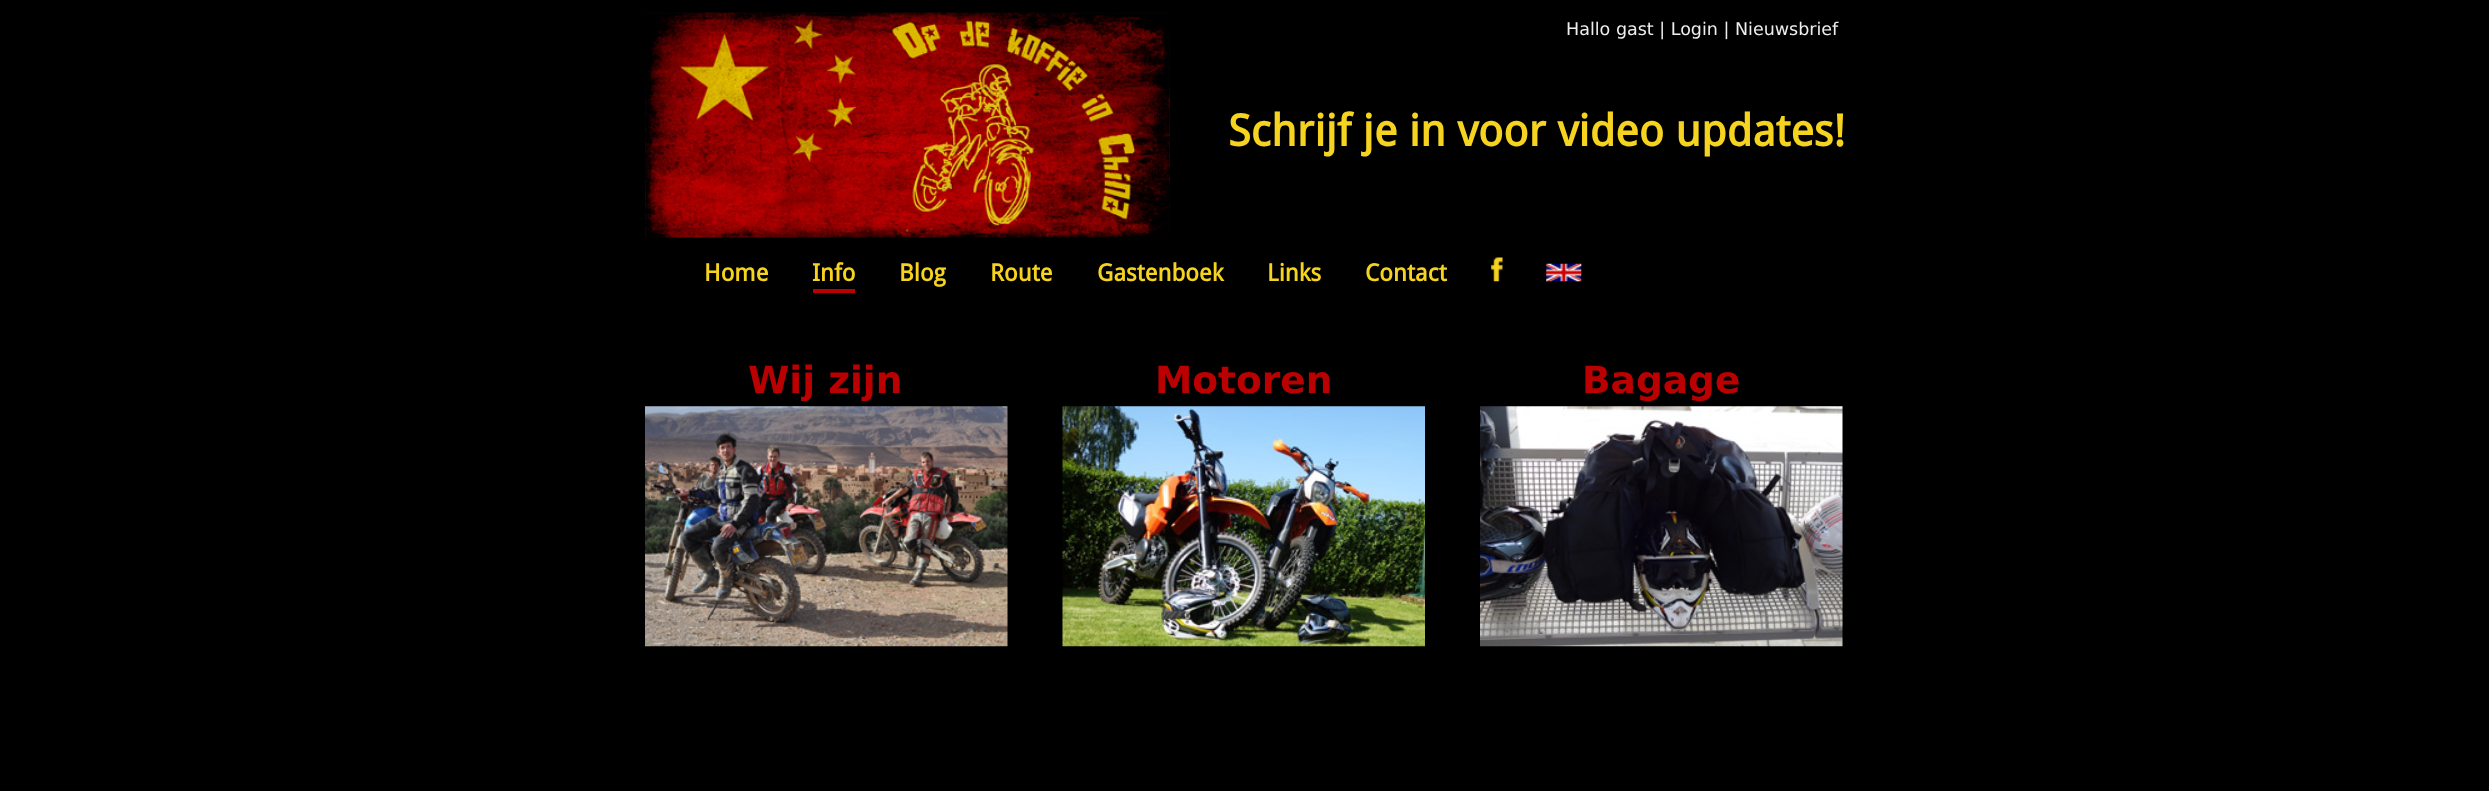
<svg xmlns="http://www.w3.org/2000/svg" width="2489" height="791">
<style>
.a{font:17.5px DejaVu Sans;fill:#eee}
.b{font:bold 43.75px Droid Sans;fill:#f5d31e}
.c{font:bold 23.75px Droid Sans;fill:#f5d31e}
.d{font:bold 37.5px DejaVu Sans;fill:#bb0001}
</style>
<rect width="100%" height="100%" fill="#000"/>
<image href="1.png" x="645" y="12" width="525" height="226"/>
<path fill="#bb0001" d="M813 289h42v4H813z"/>
<image href="2.png" x="1491" y="257" width="12" height="25"/>
<image href="3.png" x="1546" y="263" width="36" height="19"/>
<image href="4.png" x="645" y="406" width="363" height="241"/>
<image href="5.png" x="1062" y="406" width="363" height="241"/>
<image href="6.png" x="1480" y="406" width="363" height="241"/>
<text class="a" x="1566" y="35">Hallo gast | Login | Nieuwsbrief</text>
<text class="b" x="1228" y="146">Schrijf je in voor video updates!</text>
<text class="c" x="704" y="281">Home</text>
<text class="c" x="812" y="281">Info</text>
<text class="c" x="899" y="281">Blog</text>
<text class="c" x="990" y="281">Route</text>
<text class="c" x="1097" y="281">Gastenboek</text>
<text class="c" x="1267" y="281">Links</text>
<text class="c" x="1365" y="281">Contact</text>
<text class="d" x="748" y="393">Wij zijn</text>
<text class="d" x="1155" y="393">Motoren</text>
<text class="d" x="1582" y="393">Bagage</text>
</svg>
